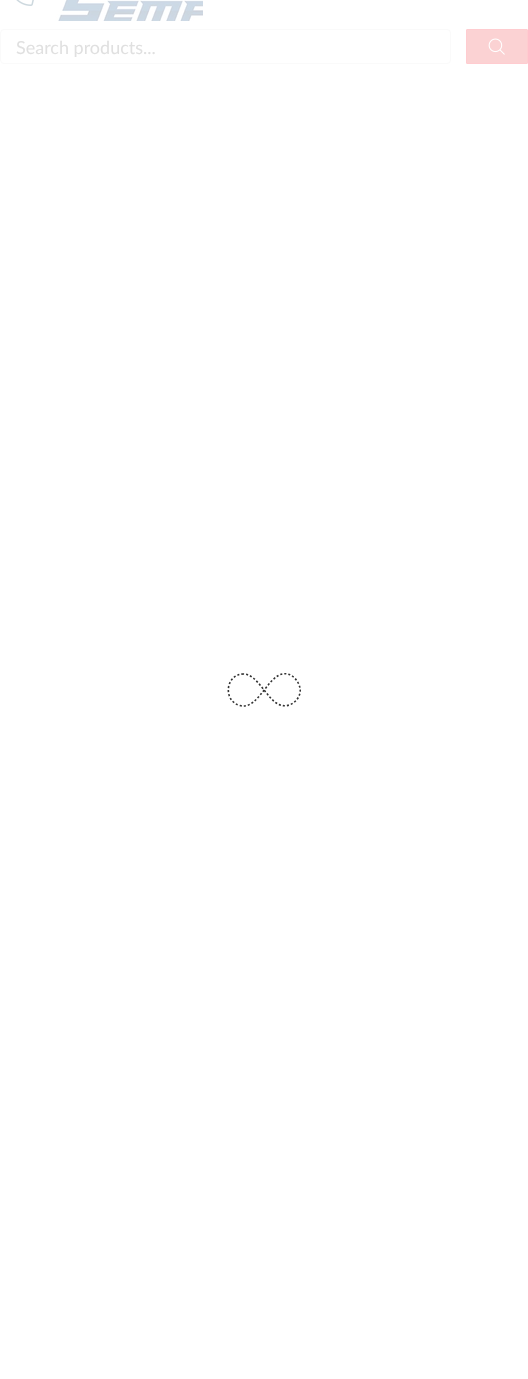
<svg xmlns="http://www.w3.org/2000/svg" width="528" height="1379">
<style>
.a{font:18px Lato;fill:#e0e0e0}
</style>
<rect width="100%" height="100%" fill="#fff"/>
<image href="1.png" x="16" y="0" width="18" height="6"/>
<image href="2.png" x="55" y="0" width="148" height="21"/>
<rect fill="none" stroke="#fafafa" x="0.5" y="29.5" width="450" height="34" rx="3.5"/>
<rect fill="#fbd2d3" stroke="#ffccd0" x="466.5" y="29.5" width="61" height="34" rx="0.5"/>
<image href="3.png" x="488" y="38" width="17" height="17"/>
<path fill="none" stroke="#333" stroke-width="1.6" stroke-dasharray="2.05 2.05" d="M243.5 674c-18 0-21 27-3.5 31.5c21 5.5 30-41.5 51.5-30c4 2.5 7.5 7.5 8.5 12.5c2 11-10.5 21.5-21 16.5c-12.5-5.5-21.5-30.5-35.5-30.5z"/>
<text class="a" x="16" y="54">Search products...</text>
</svg>
